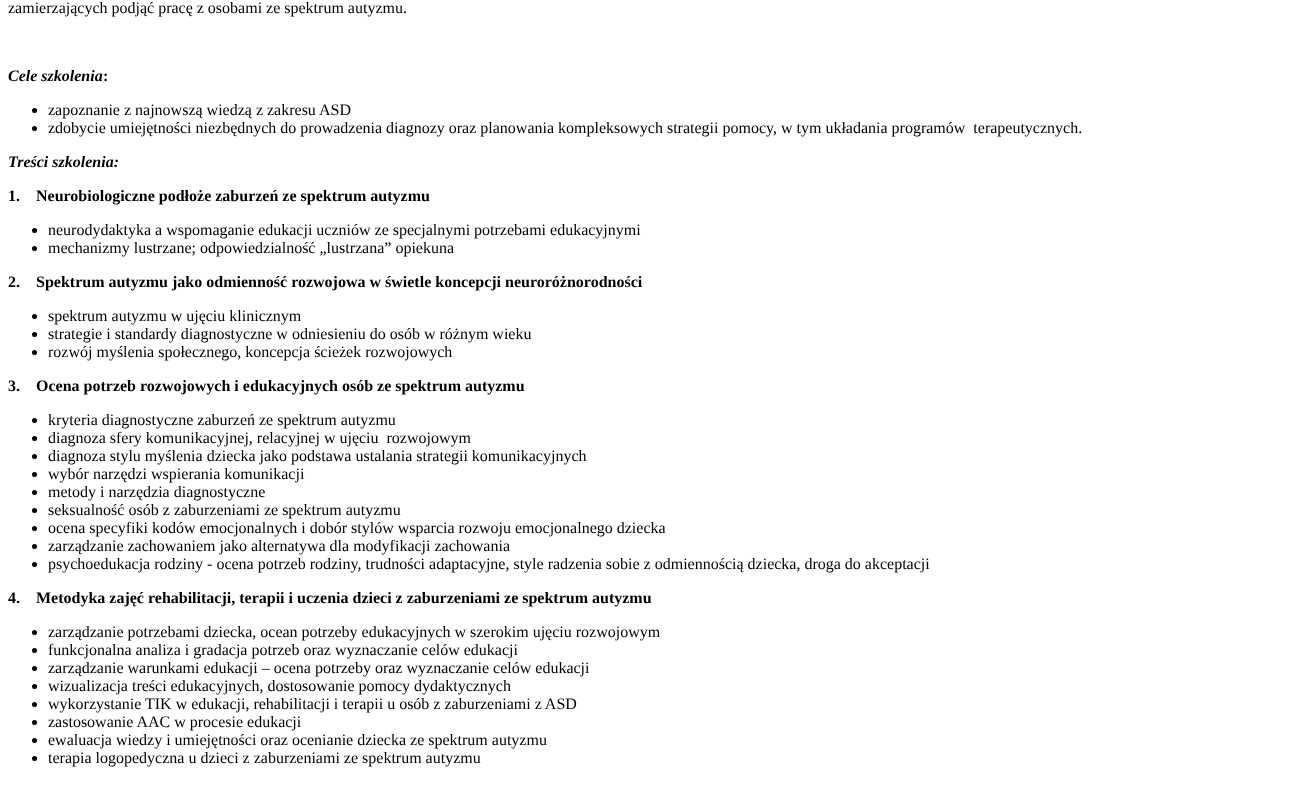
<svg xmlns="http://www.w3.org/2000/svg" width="1294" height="791">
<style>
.a{font:16px Liberation Serif;fill:#000}
.b{font:italic bold 16px Liberation Serif;fill:#000}
.c{font:bold 16px Liberation Serif;fill:#000}
</style>
<rect width="100%" height="100%" fill="#fff"/>
<circle fill="#000" cx="34.5" cy="110.5" r="2.5"/>
<circle fill="#000" cx="34.5" cy="128.5" r="2.5"/>
<circle fill="#000" cx="34.5" cy="230.5" r="2.5"/>
<circle fill="#000" cx="34.5" cy="248.5" r="2.5"/>
<circle fill="#000" cx="34.5" cy="316.5" r="2.5"/>
<circle fill="#000" cx="34.5" cy="334.5" r="2.5"/>
<circle fill="#000" cx="34.5" cy="352.5" r="2.5"/>
<circle fill="#000" cx="34.5" cy="420.5" r="2.5"/>
<circle fill="#000" cx="34.5" cy="438.5" r="2.5"/>
<circle fill="#000" cx="34.5" cy="456.5" r="2.5"/>
<circle fill="#000" cx="34.5" cy="474.5" r="2.5"/>
<circle fill="#000" cx="34.5" cy="492.5" r="2.5"/>
<circle fill="#000" cx="34.5" cy="510.5" r="2.5"/>
<circle fill="#000" cx="34.5" cy="528.5" r="2.5"/>
<circle fill="#000" cx="34.5" cy="546.5" r="2.5"/>
<circle fill="#000" cx="34.5" cy="564.5" r="2.5"/>
<circle fill="#000" cx="34.5" cy="632.5" r="2.5"/>
<circle fill="#000" cx="34.5" cy="650.5" r="2.5"/>
<circle fill="#000" cx="34.5" cy="668.5" r="2.5"/>
<circle fill="#000" cx="34.5" cy="686.5" r="2.5"/>
<circle fill="#000" cx="34.5" cy="704.5" r="2.5"/>
<circle fill="#000" cx="34.5" cy="722.5" r="2.5"/>
<circle fill="#000" cx="34.5" cy="740.5" r="2.5"/>
<circle fill="#000" cx="34.5" cy="758.5" r="2.5"/>
<text class="a" x="8" y="13">zamierzających podjąć pracę z osobami ze spektrum autyzmu.</text>
<text class="b" x="8" y="81">Cele szkolenia</text>
<text class="c" x="103" y="81">:</text>
<text class="a" x="48" y="115">zapoznanie z najnowszą wiedzą z zakresu ASD</text>
<text class="a" xml:space="preserve" x="48" y="133">zdobycie umiejętności niezbędnych do prowadzenia diagnozy oraz planowania kompleksowych strategii pomocy, w tym układania programów  terapeutycznych.</text>
<text class="b" x="8" y="167">Treści szkolenia:</text>
<text class="c" xml:space="preserve" x="8" y="201">1.    Neurobiologiczne podłoże zaburzeń ze spektrum autyzmu</text>
<text class="a" x="48" y="235">neurodydaktyka a wspomaganie edukacji uczniów ze specjalnymi potrzebami edukacyjnymi</text>
<text class="a" x="48" y="253">mechanizmy lustrzane; odpowiedzialność „lustrzana” opiekuna</text>
<text class="c" xml:space="preserve" x="8" y="287">2.    Spektrum autyzmu jako odmienność rozwojowa w świetle koncepcji neuroróżnorodności</text>
<text class="a" x="48" y="321">spektrum autyzmu w ujęciu klinicznym</text>
<text class="a" x="48" y="339">strategie i standardy diagnostyczne w odniesieniu do osób w różnym wieku</text>
<text class="a" x="48" y="357">rozwój myślenia społecznego, koncepcja ścieżek rozwojowych</text>
<text class="c" xml:space="preserve" x="8" y="391">3.    Ocena potrzeb rozwojowych i edukacyjnych osób ze spektrum autyzmu</text>
<text class="a" x="48" y="425">kryteria diagnostyczne zaburzeń ze spektrum autyzmu</text>
<text class="a" xml:space="preserve" x="48" y="443">diagnoza sfery komunikacyjnej, relacyjnej w ujęciu  rozwojowym</text>
<text class="a" x="48" y="461">diagnoza stylu myślenia dziecka jako podstawa ustalania strategii komunikacyjnych</text>
<text class="a" x="48" y="479">wybór narzędzi wspierania komunikacji</text>
<text class="a" x="48" y="497">metody i narzędzia diagnostyczne</text>
<text class="a" x="48" y="515">seksualność osób z zaburzeniami ze spektrum autyzmu</text>
<text class="a" x="48" y="533">ocena specyfiki kodów emocjonalnych i dobór stylów wsparcia rozwoju emocjonalnego dziecka</text>
<text class="a" x="48" y="551">zarządzanie zachowaniem jako alternatywa dla modyfikacji zachowania</text>
<text class="a" x="48" y="569">psychoedukacja rodziny - ocena potrzeb rodziny, trudności adaptacyjne, style radzenia sobie z odmiennością dziecka, droga do akceptacji</text>
<text class="c" xml:space="preserve" x="8" y="603">4.    Metodyka zajęć rehabilitacji, terapii i uczenia dzieci z zaburzeniami ze spektrum autyzmu</text>
<text class="a" x="48" y="637">zarządzanie potrzebami dziecka, ocean potrzeby edukacyjnych w szerokim ujęciu rozwojowym</text>
<text class="a" x="48" y="655">funkcjonalna analiza i gradacja potrzeb oraz wyznaczanie celów edukacji</text>
<text class="a" x="48" y="673">zarządzanie warunkami edukacji – ocena potrzeby oraz wyznaczanie celów edukacji</text>
<text class="a" x="48" y="691">wizualizacja treści edukacyjnych, dostosowanie pomocy dydaktycznych</text>
<text class="a" x="48" y="709">wykorzystanie TIK w edukacji, rehabilitacji i terapii u osób z zaburzeniami z ASD</text>
<text class="a" x="48" y="727">zastosowanie AAC w procesie edukacji</text>
<text class="a" x="48" y="745">ewaluacja wiedzy i umiejętności oraz ocenianie dziecka ze spektrum autyzmu</text>
<text class="a" x="48" y="763">terapia logopedyczna u dzieci z zaburzeniami ze spektrum autyzmu</text>
</svg>
